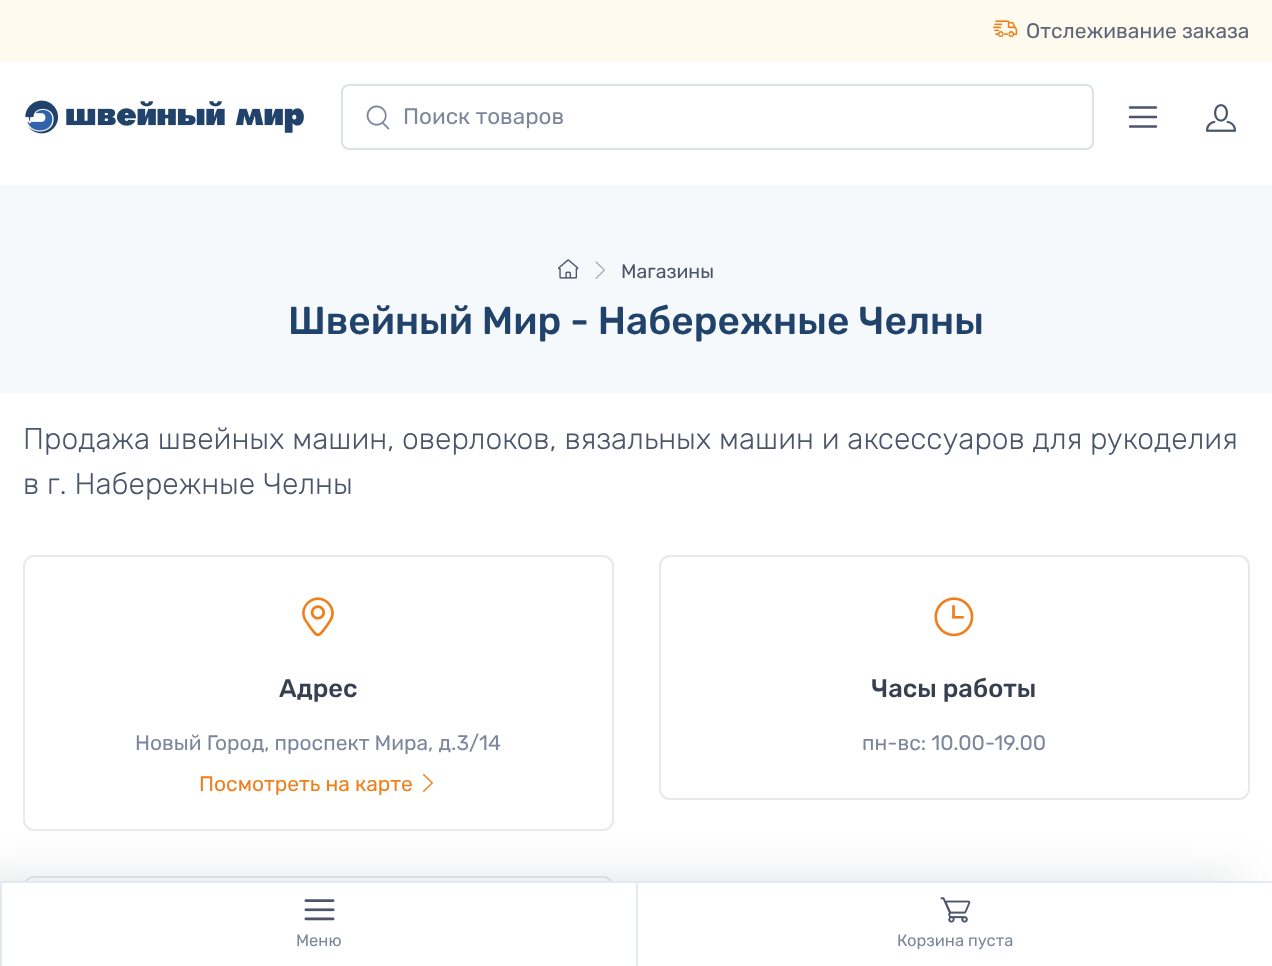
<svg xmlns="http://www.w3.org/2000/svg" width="1272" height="966">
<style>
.a{font:21px Rubik;fill:#5d6678}
.b{font:22.5px Rubik;fill:#7d879c}
.c{font:19.5px Rubik;fill:#4b566b}
.d{font:500 38.8px Rubik;fill:#21426b}
.e{font:300 30px Rubik;fill:#4b566b}
.f{font:500 25.5px Rubik;fill:#373f50}
.g{font:21px Rubik;fill:#7d879c}
.h{font:21px Rubik;fill:#ef7f1a}
.i{font:16.5px Rubik;fill:#7d879c}
</style>
<rect width="100%" height="100%" fill="#fff"/>
<path fill="#fffaee" d="M0 0h1272v62H0z"/>
<image href="1.png" x="993" y="20" width="25" height="18"/>
<image href="2.png" x="25" y="100" width="279" height="34"/>
<rect fill="none" stroke="#dae1e7" stroke-width="2" x="342" y="85" width="751" height="64" rx="7"/>
<image href="3.png" x="366" y="105" width="24" height="25"/>
<path fill="none" stroke="#4b566b" stroke-width="2.4" stroke-linecap="round" d="M1130 107.5h26m-26 9.5h26m-26 9.5h26"/>
<image href="4.png" x="1206" y="104" width="30" height="28"/>
<path fill="#f6f9fc" d="M0 185h1272v208H0z"/>
<image href="5.png" x="558" y="259" width="21" height="20"/>
<image href="6.png" x="595" y="261" width="11" height="18"/>
<rect fill="none" stroke="#e9e9e9" stroke-width="2" x="24" y="556" width="589" height="274" rx="10"/>
<image href="7.png" x="302" y="597" width="32" height="40"/>
<image href="8.png" x="423" y="774" width="11" height="18"/>
<rect fill="none" stroke="#e9e9e9" stroke-width="2" x="660" y="556" width="589" height="243" rx="10"/>
<image href="9.png" x="934" y="597" width="40" height="40"/>
<rect fill="none" stroke="#e9e9e9" stroke-width="2" x="24" y="877" width="589" height="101" rx="10"/>
<path fill="#2b344526" filter="blur(24px)" d="M-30 881h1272v85H-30z"/>
<path fill="#fff" d="M2 883h1270v83H2z"/>
<path fill="#e3e9ef" d="M0 881h1272v2H0z"/>
<path fill="#e3e9ef" d="M0 882h2v84H0z"/>
<image href="10.png" x="304" y="899" width="31" height="22"/>
<path fill="#e3e9ef" d="M636 882h2v84H636z"/>
<image href="11.png" x="940" y="897" width="31" height="26"/>
<text class="a" x="1026" y="38">Отслеживание заказа</text>
<text class="b" x="403" y="124">Поиск товаров</text>
<text class="c" x="621" y="278">Магазины</text>
<text class="d" x="288" y="334">Швейный Мир - Набережные Челны</text>
<text class="e" x="23" y="449">Продажа швейных машин, оверлоков, вязальных машин и аксессуаров для рукоделия</text>
<text class="e" x="23" y="494">в г. Набережные Челны</text>
<text class="f" x="279" y="697">Адрес</text>
<text class="g" x="135" y="750">Новый Город, проспект Мира, д.3/14</text>
<text class="h" x="199" y="791">Посмотреть на карте</text>
<text class="f" x="871" y="697">Часы работы</text>
<text class="g" x="862" y="750">пн-вс: 10.00-19.00</text>
<text class="i" x="296" y="946">Меню</text>
<text class="i" x="897" y="946">Корзина пуста</text>
</svg>
